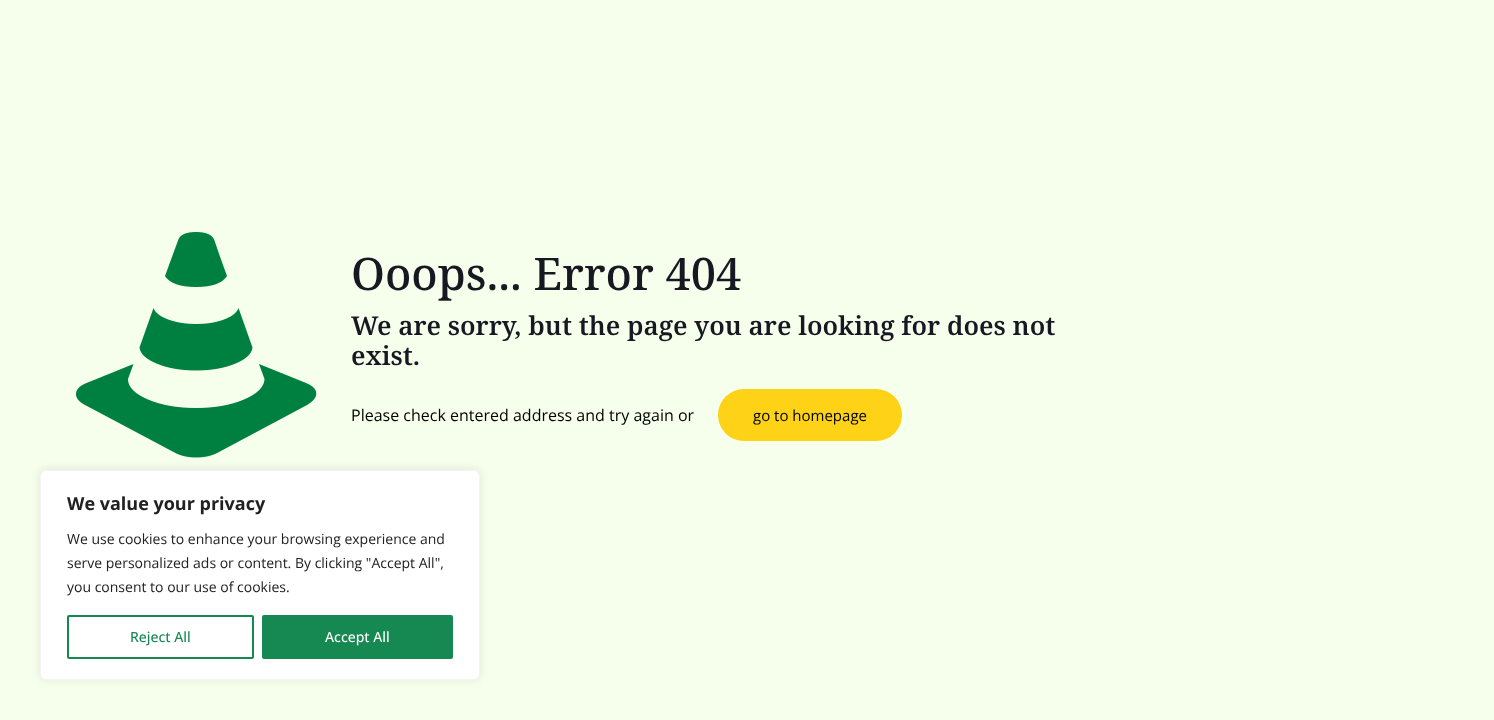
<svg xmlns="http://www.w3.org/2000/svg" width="1494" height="720">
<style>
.a{font:500 45px Noto Serif;fill:#161922}
.b{font:600 26px Noto Serif;fill:#161922}
.c{font:16px Open Sans;fill:#000101}
.d{font:15px Open Sans;fill:#000101}
.e{font:bold 18px Open Sans;fill:#212121}
.f{font:14px Open Sans;fill:#212121}
.g{font:500 14px Open Sans;fill:#168851}
.h{font:500 14px Open Sans;fill:#fff}
</style>
<rect width="100%" height="100%" fill="#f6ffeb"/>
<image href="1.png" x="76" y="232" width="241" height="226"/>
<rect fill="#fdd217" x="718" y="389" width="184" height="52" rx="26"/>
<rect fill="#acabab4d" filter="blur(5px)" x="40" y="469" width="440" height="210" rx="6"/>
<rect fill="#fff" stroke="#f4f4f4" x="40.5" y="470.5" width="439" height="209" rx="5.5"/>
<rect fill="none" stroke="#168851" stroke-width="2" x="68" y="616" width="185" height="42" rx="1"/>
<rect fill="#168851" stroke="#168851" stroke-width="2" x="263" y="616" width="189" height="42" rx="1"/>
<text class="a" x="351" y="290">Ooops... Error 404</text>
<text class="b" x="351" y="335">We are sorry, but the page you are looking for does not</text>
<text class="b" x="351" y="365">exist.</text>
<text class="c" x="351" y="421">Please check entered address and try again or</text>
<text class="d" x="753" y="421">go to homepage</text>
<text class="e" x="67" y="510">We value your privacy</text>
<text class="f" x="67" y="544">We use cookies to enhance your browsing experience and</text>
<text class="f" x="67" y="568">serve personalized ads or content. By clicking "Accept All",</text>
<text class="f" x="67" y="592">you consent to our use of cookies.</text>
<text class="g" x="130" y="642">Reject All</text>
<text class="h" x="325" y="642">Accept All</text>
</svg>
